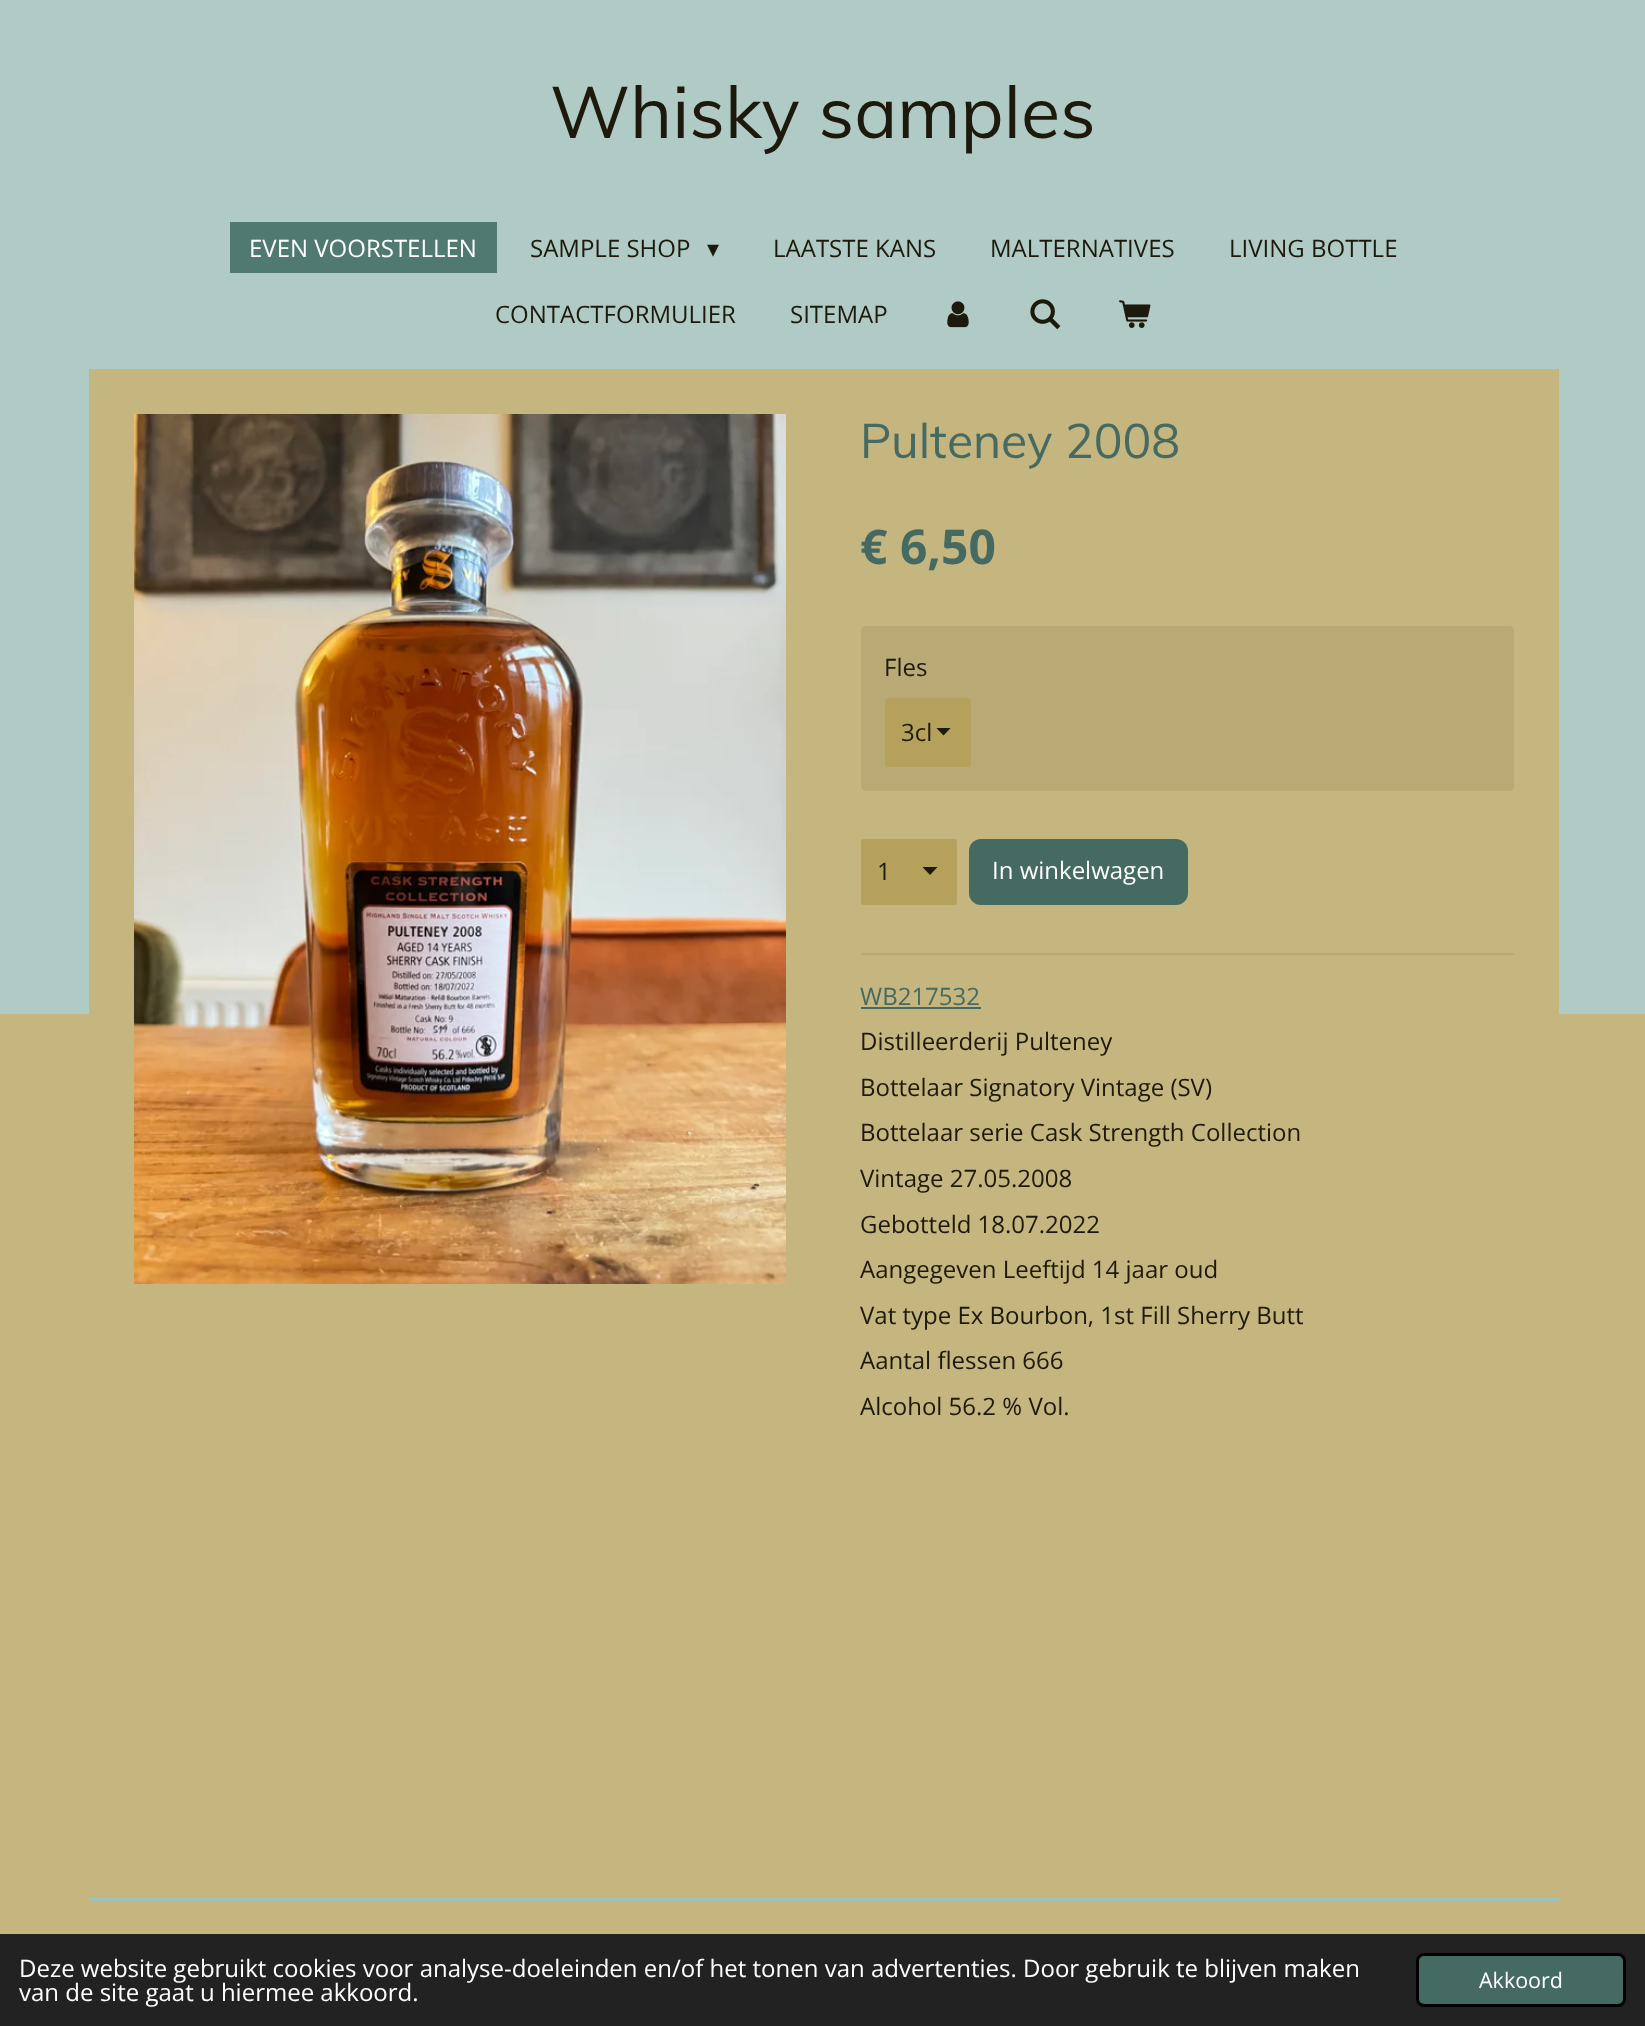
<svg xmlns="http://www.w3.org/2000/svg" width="1645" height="2026">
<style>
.a{font:72px Muli;fill:#1d1a0d}
.b{font:24px Open Sans;fill:#fff}
.c{font:24px Open Sans;fill:#1d1a0d}
.d{font:24px DejaVu Sans;fill:#1d1a0d}
.e{font:48px Muli;fill:#456a62}
.f{font:bold 48px Open Sans;fill:#456a62}
.g{font:24px Open Sans;fill:#456a62}
.h{font:21.5px Open Sans;fill:#fff}
</style>
<defs>
<clipPath id="clip1"><path d="M936 728h15v9H936z"/></clipPath>
</defs>
<rect width="100%" height="100%" fill="#c5b57e"/>
<path fill="#b0cbc5" d="M0 0h1645v1014H0z"/>
<path fill="#507970" d="M230 222h267v51H230z"/>
<image href="1.png" x="947" y="301" width="22" height="27"/>
<image href="2.png" x="1030" y="299" width="31" height="31"/>
<image href="3.png" x="1119" y="300" width="32" height="28"/>
<path fill="#c5b57e" d="M89 369h1470v645H89z"/>
<image href="4.png" x="134" y="414" width="652" height="870"/>
<rect fill="#b8a975" x="861" y="626" width="653" height="165" rx="5"/>
<rect fill="#b5a15b" x="885" y="698" width="86" height="69" rx="3"/>
<g clip-path="url(#clip1)">
<path fill="#1d1a0d" d="M943.5 735.5l-7.5-8h15z"/>
</g>
<rect fill="#b5a15b" x="861" y="839" width="96" height="66" rx="3"/>
<path fill="#1d1a0d" d="M930 875l-7.5-8h15z"/>
<rect fill="#456a62" x="969" y="839" width="219" height="66" rx="12"/>
<path fill="#b9aa76" d="M861 953h653v2H861z"/>
<path fill="#456a62" d="M861 1007h120v2H861z"/>
<path fill="#a1c1ba" d="M89 1898h1470v3H89z"/>
<path fill="#222" d="M0 1934h1645v92H0z"/>
<rect fill="#456a62" stroke="#000" stroke-width="3" x="1417.5" y="1954.5" width="207" height="51" rx="6.5"/>
<text class="a" x="550" y="138">Whisky samples</text>
<text class="b" x="249" y="257">EVEN VOORSTELLEN</text>
<text class="c" x="530" y="257">SAMPLE SHOP</text>
<text class="d" x="707" y="257">▾</text>
<text class="c" x="773" y="257">LAATSTE KANS</text>
<text class="c" x="990" y="257">MALTERNATIVES</text>
<text class="c" x="1229" y="257">LIVING BOTTLE</text>
<text class="c" x="495" y="323">CONTACTFORMULIER</text>
<text class="c" x="790" y="323">SITEMAP</text>
<text class="e" x="860" y="458">Pulteney 2008</text>
<text class="f" x="860" y="564">€ 6,50</text>
<text class="c" x="884" y="676">Fles</text>
<text class="c" x="901" y="741">3cl</text>
<text class="c" x="877" y="880">1</text>
<text class="b" x="992" y="879">In winkelwagen</text>
<text class="g" x="860" y="1005">WB217532</text>
<text class="c" x="860" y="1050">Distilleerderij Pulteney</text>
<text class="c" x="860" y="1096">Bottelaar Signatory Vintage (SV)</text>
<text class="c" x="860" y="1141">Bottelaar serie Cask Strength Collection</text>
<text class="c" x="860" y="1187">Vintage 27.05.2008</text>
<text class="c" x="860" y="1233">Gebotteld 18.07.2022</text>
<text class="c" x="860" y="1278">Aangegeven Leeftijd 14 jaar oud</text>
<text class="c" x="860" y="1324">Vat type Ex Bourbon, 1st Fill Sherry Butt</text>
<text class="c" x="860" y="1369">Aantal flessen 666</text>
<text class="c" x="860" y="1415">Alcohol 56.2 % Vol.</text>
<text class="b" x="19" y="1977">Deze website gebruikt cookies voor analyse-doeleinden en/of het tonen van advertenties. Door gebruik te blijven maken</text>
<text class="b" x="19" y="2001">van de site gaat u hiermee akkoord.</text>
<text class="h" x="1479" y="1988">Akkoord</text>
</svg>
